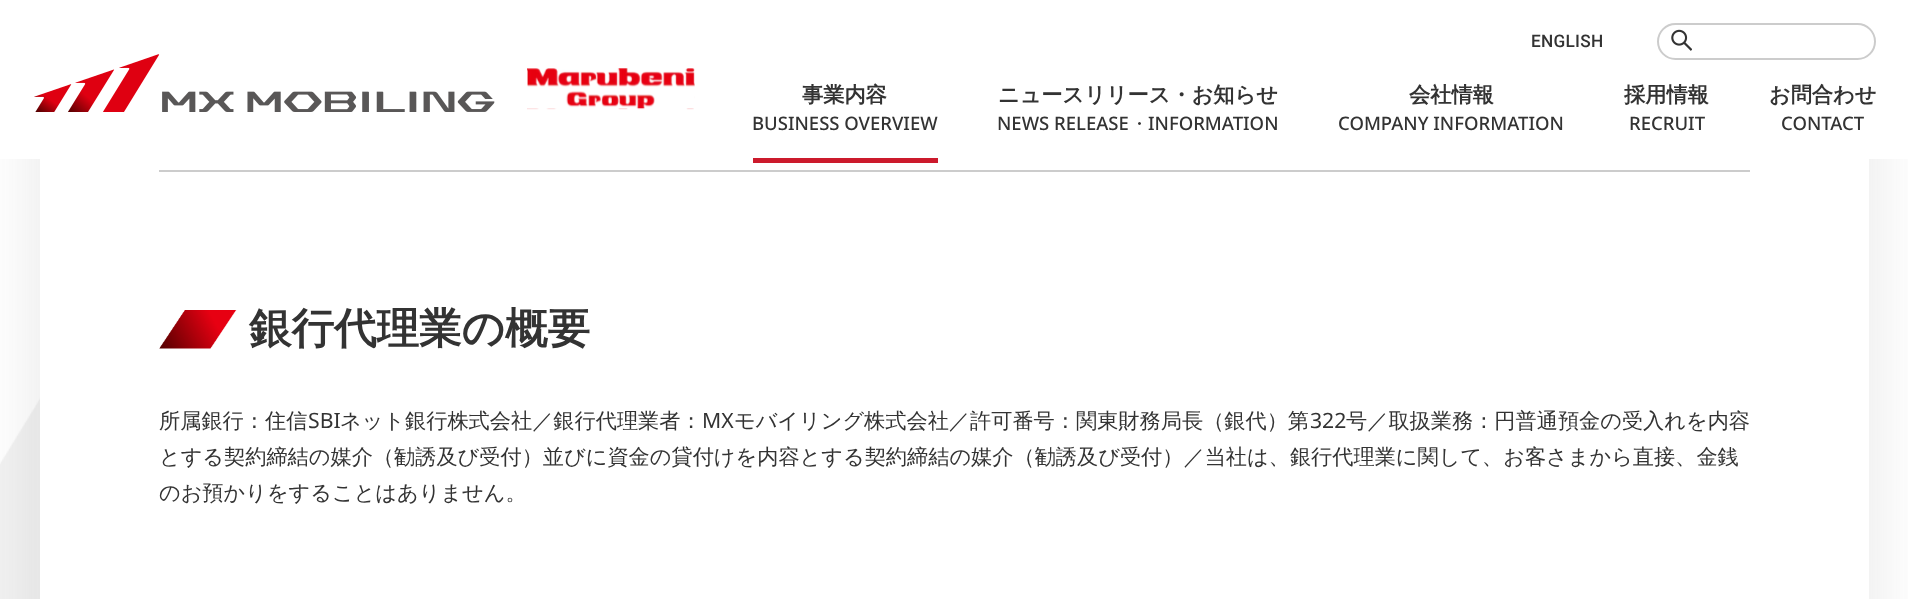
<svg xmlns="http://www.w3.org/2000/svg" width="1908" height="599">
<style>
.a{font:500 17.25px Roboto;letter-spacing:0.25px;fill:#333}
.b{font:bold 21.2px WenQuanYi Zen Hei;fill:#333}
.c{font:500 18.5px Noto Sans;fill:#333}
.d{font:500 18.5px WenQuanYi Zen Hei;fill:#333}
.e{font:bold 42.5px WenQuanYi Zen Hei;fill:#333}
.f{font:500 21.2px WenQuanYi Zen Hei;fill:#333}
.g{font:21.2px Noto Sans;fill:#333}
</style>
<rect width="100%" height="100%" fill="#fff"/>
<image href="4.png" x="0" y="397" width="40" height="202"/>
<rect fill="#66666629" filter="blur(35px)" x="40" y="-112" width="1829" height="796" rx="7"/>
<path fill="#fff" d="M0 0h1908v159H0z"/>
<image href="1.png" x="34" y="54" width="461" height="58"/>
<image href="2.png" x="527" y="68" width="168" height="42"/>
<rect fill="none" stroke="#ccc" stroke-width="2" x="1658" y="24" width="217" height="35" rx="17.5"/>
<image href="3.png" x="1671" y="29" width="21" height="22"/>
<path fill="#fff" d="M40 159h1829v440H40z"/>
<path fill="#cc1a2c" d="M753 158h185v5H753z"/>
<path fill="#ccc" d="M159 170h1591v2H159z"/>
<image href="5.png" x="159" y="310" width="78" height="39"/>
<text class="a" x="1531" y="47">ENGLISH</text>
<text class="b" x="802" y="102">事業内容</text>
<text class="c" x="752" y="130">BUSINESS OVERVIEW</text>
<text class="b" x="998" y="102">ニュースリリース・お知らせ</text>
<text class="c" x="997" y="130">NEWS RELEASE</text>
<text class="d" x="1130" y="130">・</text>
<text class="c" x="1148" y="130">INFORMATION</text>
<text class="b" x="1409" y="102">会社情報</text>
<text class="c" x="1338" y="130">COMPANY INFORMATION</text>
<text class="b" x="1624" y="102">採用情報</text>
<text class="c" x="1629" y="130">RECRUIT</text>
<text class="b" x="1769" y="102">お問合わせ</text>
<text class="c" x="1781" y="130">CONTACT</text>
<text class="e" x="249" y="343">銀行代理業の概要</text>
<text class="f" x="159" y="428">所属銀行：住信</text>
<text class="g" x="308" y="428">SBI</text>
<text class="f" x="340" y="428">ネット銀行株式会社／銀行代理業者：</text>
<text class="g" x="702" y="428">MX</text>
<text class="f" x="734" y="428">モバイリング株式会社／許可番号：関東財務局長（銀代）第</text>
<text class="g" x="1310" y="428">322</text>
<text class="f" x="1346" y="428">号／取扱業務：円普通預金の受入れを内容</text>
<text class="f" x="159" y="464">とする契約締結の媒介（勧誘及び受付）並びに資金の貸付けを内容とする契約締結の媒介（勧誘及び受付）／当社は、銀行代理業に関して、お客さまから直接、金銭</text>
<text class="f" x="159" y="500">のお預かりをすることはありません。</text>
</svg>
